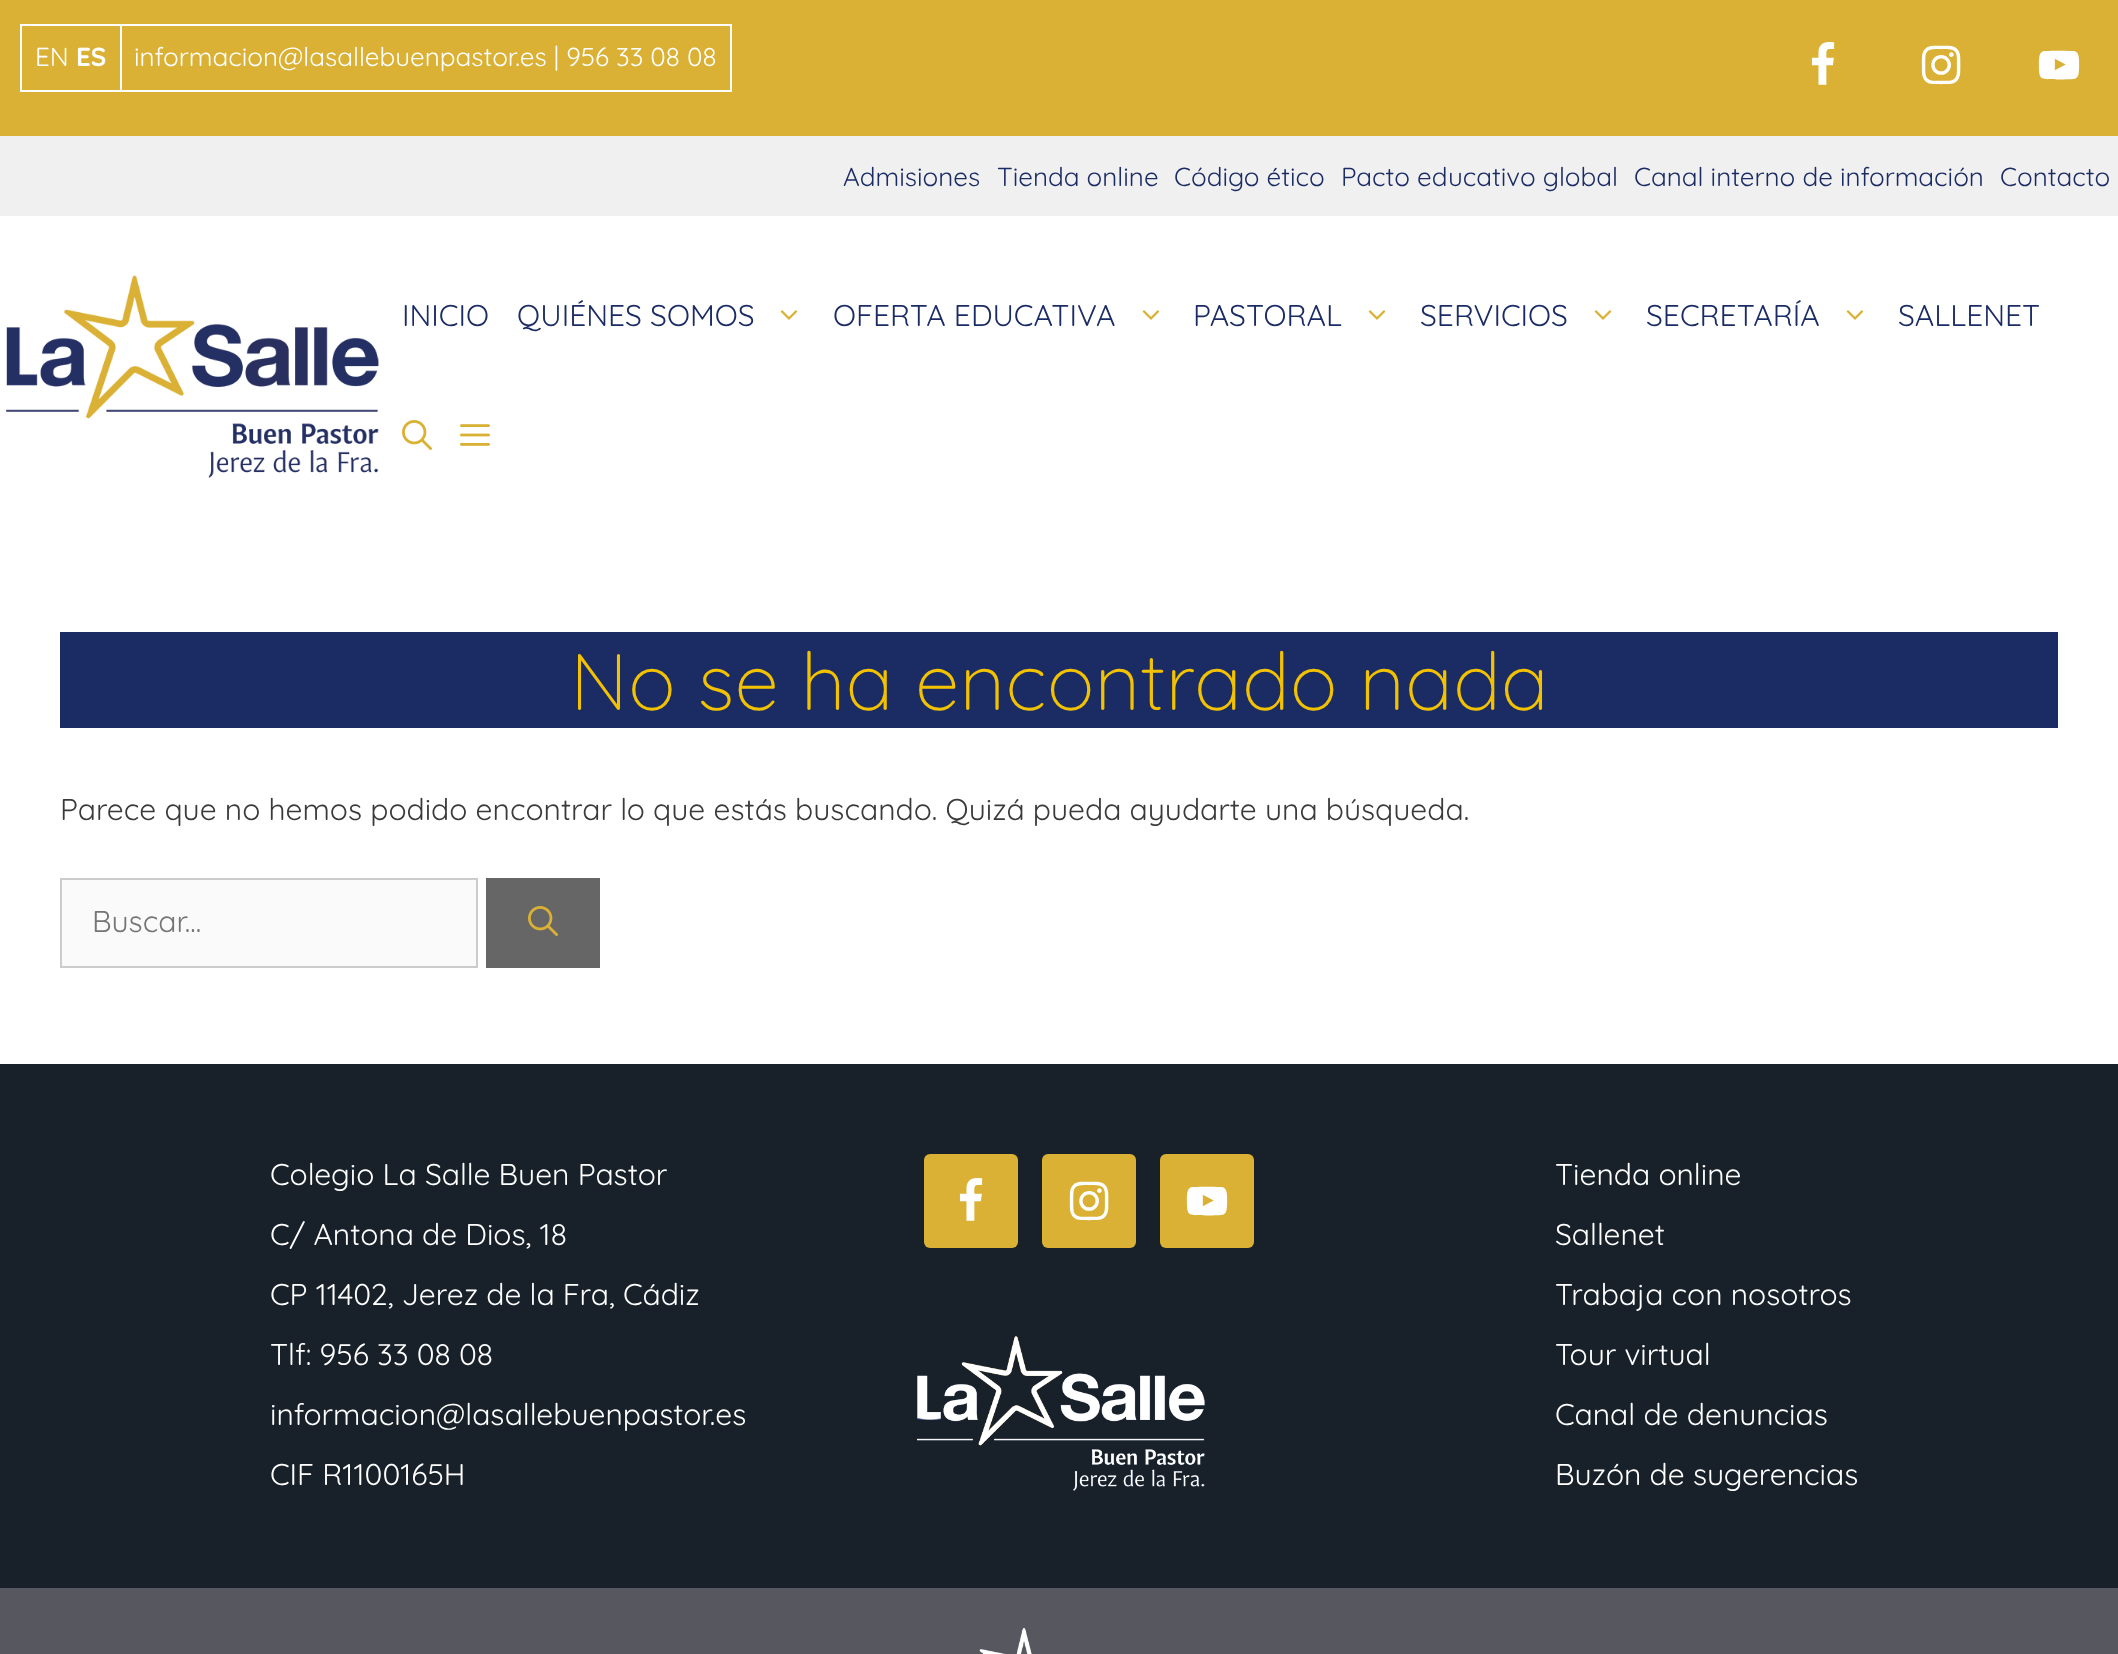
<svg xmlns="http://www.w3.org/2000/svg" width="2118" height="1654">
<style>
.a{font:26px Quicksand;fill:#fff}
.b{font:bold 26px Quicksand;fill:#fff}
.c{font:26px Quicksand;fill:#1b2c65}
.d{font:30px Quicksand;fill:#1b2c65}
.e{font:300 80px Quicksand;fill:#f2c100}
.f{font:30px Quicksand;fill:#3a3a3a}
.g{font:30px Quicksand;fill:#757575}
.h{font:30px Quicksand;fill:#fff}
</style>
<rect width="100%" height="100%" fill="#fff"/>
<path fill="#dab135" d="M0 0h2118v136H0z"/>
<path fill="#fff" d="M120 24h612v2H120z"/>
<path fill="#fff" d="M730 24h2v68H730z"/>
<path fill="#fff" d="M120 90h612v2H120z"/>
<path fill="#fff" d="M120 24h2v68H120z"/>
<path fill="#fff" d="M20 24h102v2H20z"/>
<path fill="#fff" d="M20 90h102v2H20z"/>
<path fill="#fff" d="M20 24h2v68H20z"/>
<image href="1.png" x="1811" y="42" width="24" height="43"/>
<image href="2.png" x="1921" y="45" width="40" height="40"/>
<image href="3.png" x="2038" y="50" width="42" height="30"/>
<path fill="#f0f0f0" d="M0 136h2118v80H0z"/>
<image href="4.png" x="6" y="275" width="373" height="203"/>
<image href="5.png" x="780" y="310" width="18" height="10"/>
<image href="5.png" x="1142" y="310" width="18" height="10"/>
<image href="5.png" x="1368" y="310" width="18" height="10"/>
<image href="5.png" x="1594" y="310" width="18" height="10"/>
<image href="5.png" x="1846" y="310" width="18" height="10"/>
<image href="6.png" x="402" y="420" width="30" height="30"/>
<image href="7.png" x="460" y="424" width="30" height="22"/>
<path fill="#1b2c65" d="M60 632h1998v96H60z"/>
<path fill="#fafafa" stroke="#ccc" stroke-width="2" d="M61 879h416v88H61z"/>
<path fill="#666" d="M486 878h114v90H486z"/>
<image href="8.png" x="528" y="906" width="30" height="30"/>
<path fill="#182129" d="M0 1064h2118v524H0z"/>
<rect fill="#dab135" x="924" y="1154" width="94" height="94" rx="6"/>
<image href="1.png" x="959" y="1178" width="24" height="43"/>
<rect fill="#dab135" x="1042" y="1154" width="94" height="94" rx="6"/>
<image href="2.png" x="1069" y="1181" width="40" height="40"/>
<rect fill="#dab135" x="1160" y="1154" width="94" height="94" rx="6"/>
<image href="9.png" x="1186" y="1186" width="42" height="30"/>
<image href="10.png" x="917" y="1336" width="288" height="155"/>
<path fill="#575760" d="M0 1588h2118v66H0z"/>
<image href="11.png" x="979" y="1628" width="53" height="26"/>
<text class="a" x="35" y="66">EN</text>
<text class="b" x="76" y="66">ES</text>
<text class="a" x="134" y="66">informacion@lasallebuenpastor.es | 956 33 08 08</text>
<text class="c" x="843" y="186">Admisiones</text>
<text class="c" x="997" y="186">Tienda online</text>
<text class="c" x="1174" y="186">Código ético</text>
<text class="c" x="1341" y="186">Pacto educativo global</text>
<text class="c" x="1634" y="186">Canal interno de información</text>
<text class="c" x="2000" y="186">Contacto</text>
<text class="d" x="402" y="326">INICIO</text>
<text class="d" x="517" y="326">QUIÉNES SOMOS</text>
<text class="d" x="833" y="326">OFERTA EDUCATIVA</text>
<text class="d" x="1193" y="326">PASTORAL</text>
<text class="d" x="1420" y="326">SERVICIOS</text>
<text class="d" x="1646" y="326">SECRETARÍA</text>
<text class="d" x="1898" y="326">SALLENET</text>
<text class="e" x="570" y="710">No se ha encontrado nada</text>
<text class="f" x="60" y="820">Parece que no hemos podido encontrar lo que estás buscando. Quizá pueda ayudarte una búsqueda.</text>
<text class="g" x="92" y="932">Buscar...</text>
<text class="h" x="270" y="1185">Colegio La Salle Buen Pastor</text>
<text class="h" x="270" y="1245">C/ Antona de Dios, 18</text>
<text class="h" x="270" y="1305">CP 11402, Jerez de la Fra, Cádiz</text>
<text class="h" x="270" y="1365">Tlf: 956 33 08 08</text>
<text class="h" x="270" y="1425">informacion@lasallebuenpastor.es</text>
<text class="h" x="270" y="1485">CIF R1100165H</text>
<text class="h" x="1555" y="1185">Tienda online</text>
<text class="h" x="1555" y="1245">Sallenet</text>
<text class="h" x="1555" y="1305">Trabaja con nosotros</text>
<text class="h" x="1555" y="1365">Tour virtual</text>
<text class="h" x="1555" y="1425">Canal de denuncias</text>
<text class="h" x="1555" y="1485">Buzón de sugerencias</text>
</svg>
